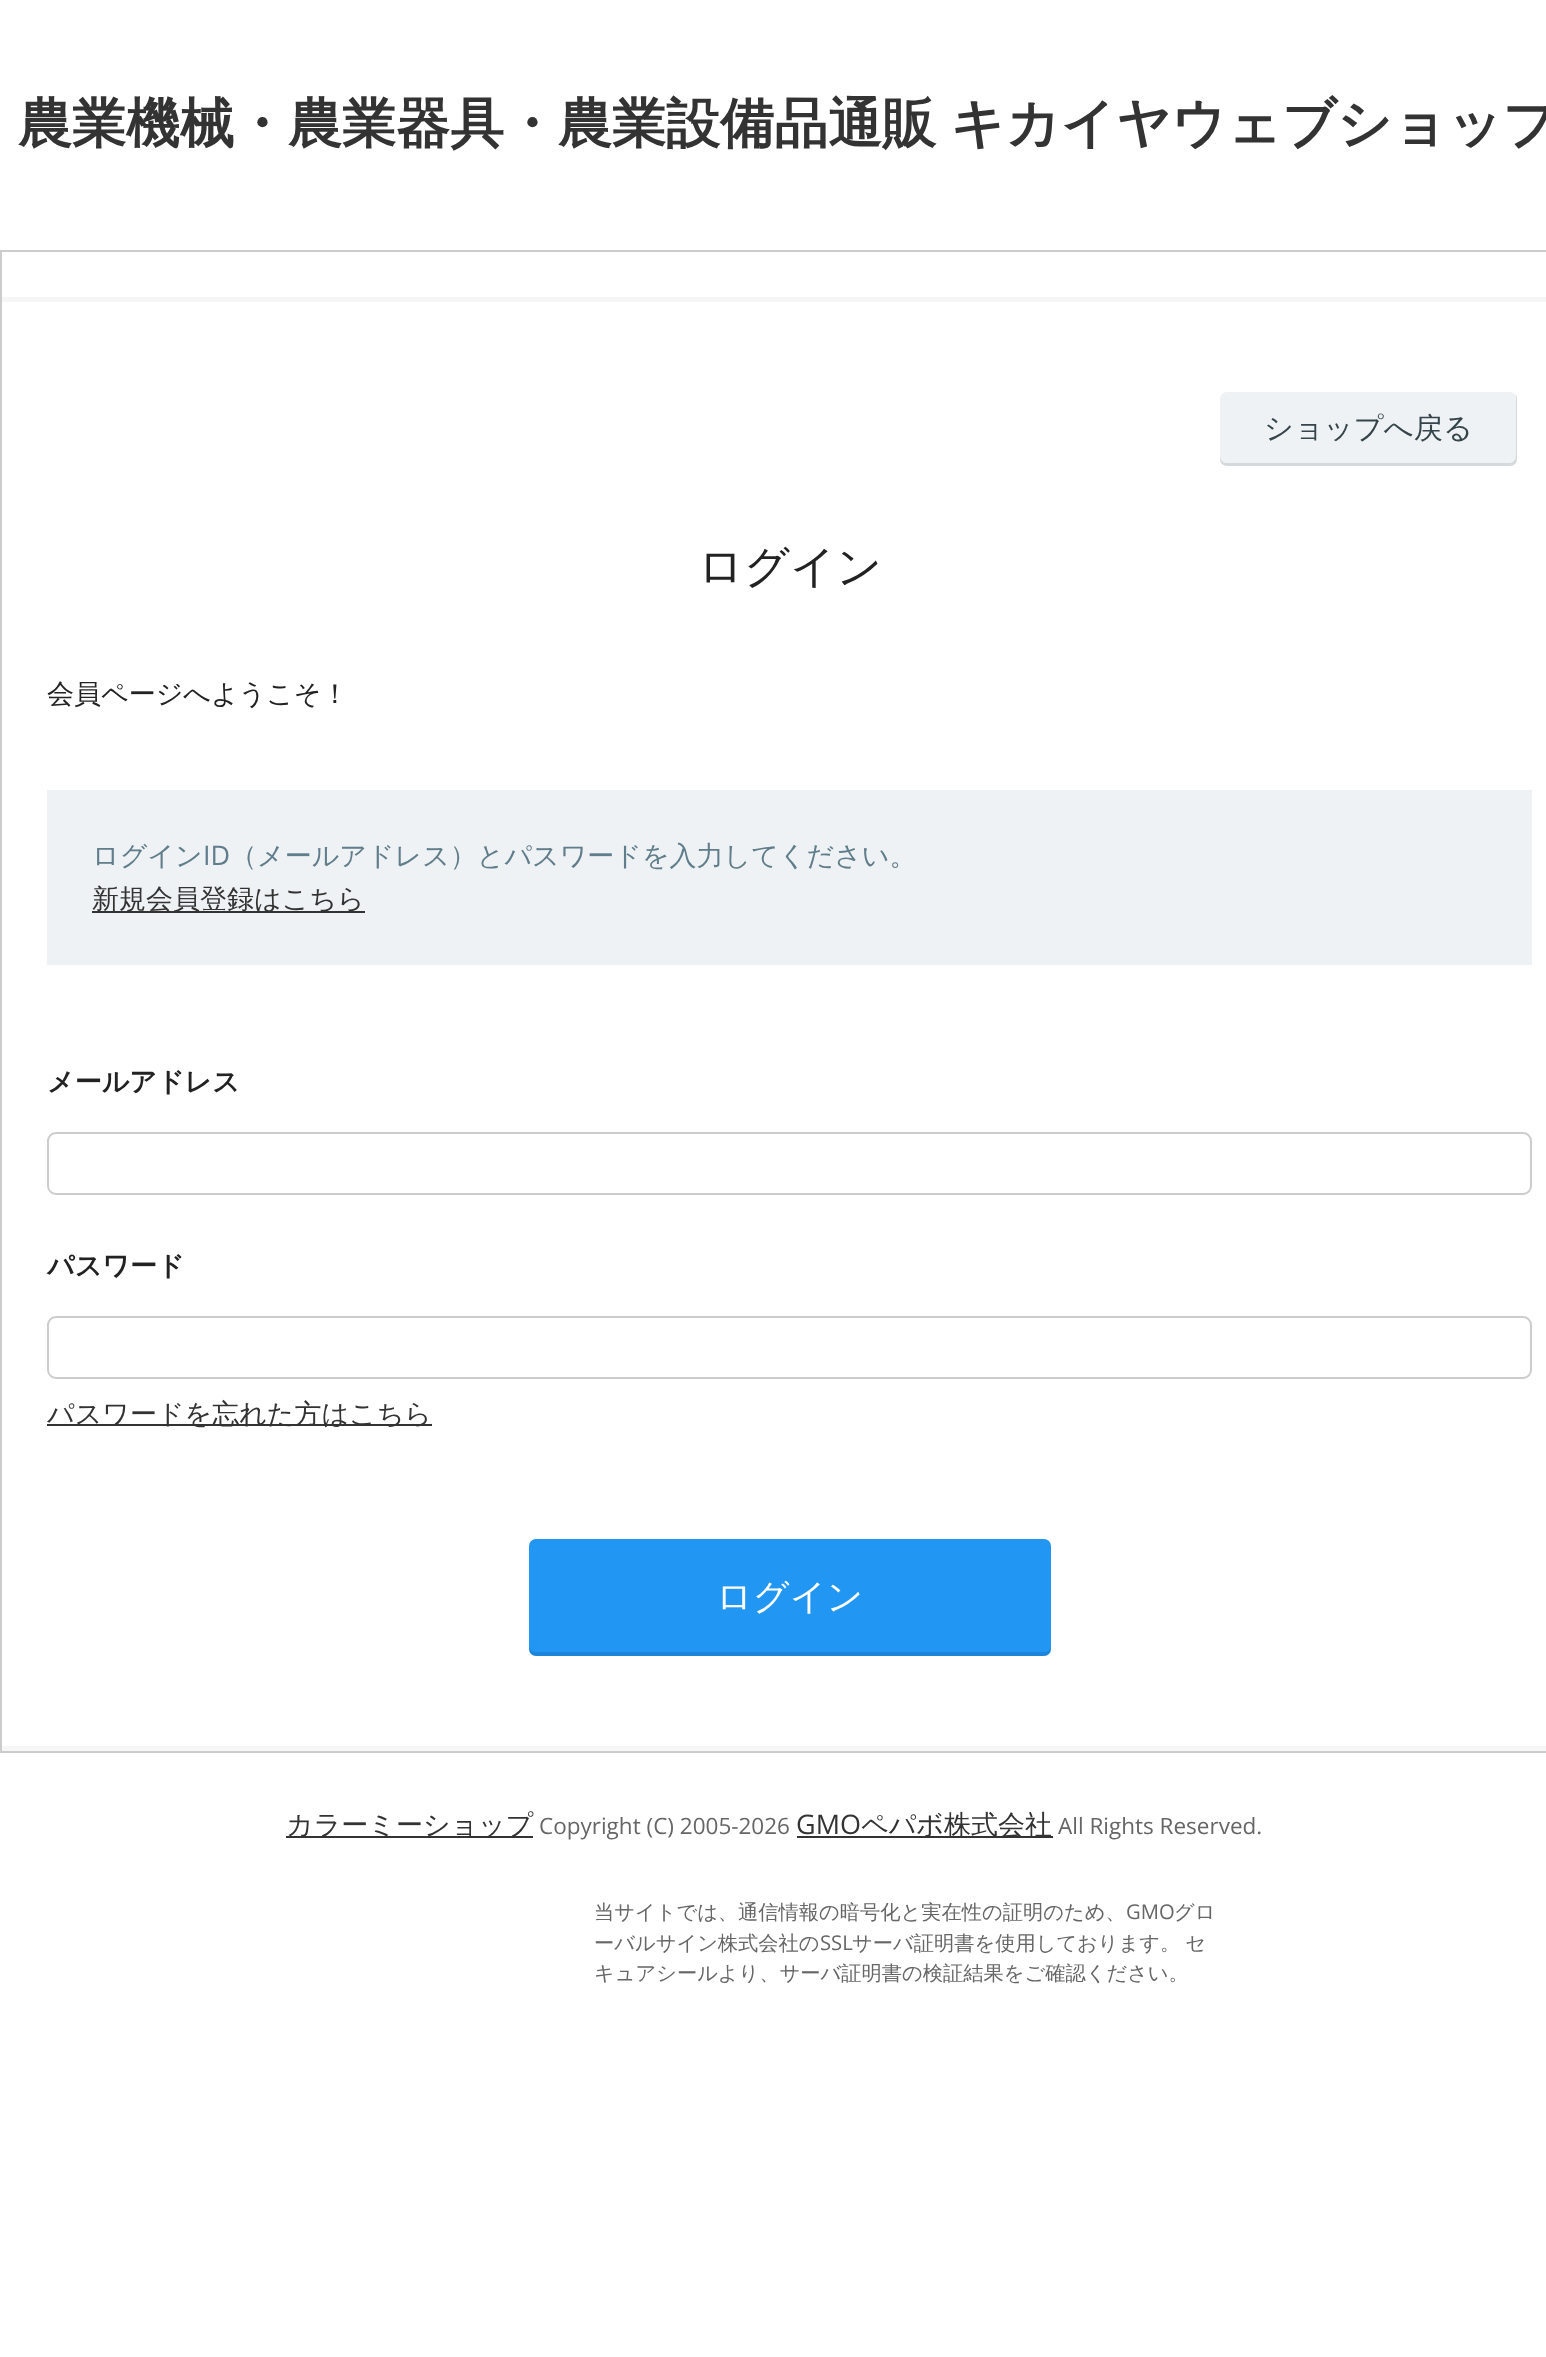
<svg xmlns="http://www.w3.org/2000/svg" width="1546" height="2357">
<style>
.a{font:bold 54px WenQuanYi Zen Hei;fill:#333}
.b{font:500 29.25px WenQuanYi Zen Hei;fill:#35454c}
.c{font:500 45px WenQuanYi Zen Hei;fill:#222}
.d{font:500 27px WenQuanYi Zen Hei;fill:#222}
.e{font:500 27px WenQuanYi Zen Hei;fill:#607d8b}
.f{font:27px Open Sans;fill:#607d8b}
.g{font:500 27px WenQuanYi Zen Hei;fill:#333}
.h{font:bold 27px WenQuanYi Zen Hei;fill:#222}
.i{font:500 36px WenQuanYi Zen Hei;fill:#fff}
.j{font:22.5px Open Sans;fill:#666}
.k{font:27px Open Sans;fill:#333}
.l{font:500 20.25px WenQuanYi Zen Hei;fill:#666}
.m{font:20.25px Open Sans;fill:#666}
</style>
<rect width="100%" height="100%" fill="#fff"/>
<path fill="none" stroke="#ccc" stroke-width="2" d="M1 251h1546v1501H1z"/>
<path fill="#f6f6f6" d="M2 297h1544v5H2z"/>
<path fill="#f6f6f6" d="M2 1746h1544v5H2z"/>
<rect fill="#eff2f4" x="1220" y="392" width="297" height="74" rx="7"/>
<path fill="#0000001a" d="M1220 456v3c0 4 3 7 7 7h283c4 0 7-3 7-7v-60c0-1 0-3-1-4v61c0 4-3 7-6 7h-284c-3 0-6-3-6-7z"/>
<path fill="#eff2f4" d="M47 790h1485v175H47z"/>
<path fill="#333" d="M92 911h273v2H92z"/>
<rect fill="none" stroke="#ccc" stroke-width="2" x="48" y="1133" width="1483" height="61" rx="8"/>
<rect fill="none" stroke="#ccc" stroke-width="2" x="48" y="1317" width="1483" height="61" rx="8"/>
<path fill="#333" d="M47 1424h385v2H47z"/>
<rect fill="#2196f3" x="529" y="1539" width="522" height="117" rx="7"/>
<path fill="#0000001a" d="M529 1646c0 5 1 10 7 10h508c6 0 7-5 7-10c0 3-3 6-7 6h-508c-4 0-7-3-7-6z"/>
<path fill="#333" d="M286 1836h247v2H286z"/>
<path fill="#333" d="M797 1836h256v2H797z"/>
<text class="a" x="18" y="142" word-spacing="-2">農業機械・農業器具・農業設備品通販 キカイヤウェブショップ</text>
<text class="b" x="1264" y="438">ショップへ戻る</text>
<text class="c" x="698" y="582">ログイン</text>
<text class="d" x="47" y="703">会員ページへようこそ！</text>
<text class="e" x="92" y="865">ログイン</text>
<text class="f" x="203" y="865">ID</text>
<text class="e" x="230" y="865">（メールアドレス）とパスワードを入力してください。</text>
<text class="g" x="92" y="908">新規会員登録はこちら</text>
<text class="h" x="47" y="1091">メールアドレス</text>
<text class="h" x="47" y="1275">パスワード</text>
<text class="g" x="47" y="1423">パスワードを忘れた方はこちら</text>
<text class="i" x="716" y="1609">ログイン</text>
<text class="g" x="286" y="1834">カラーミーショップ</text>
<text class="j" x="539" y="1834">Copyright (C) 2005-2026</text>
<text class="k" x="796" y="1834">GMO</text>
<text class="g" x="861" y="1834">ペパボ株式会社</text>
<text class="j" x="1058" y="1834">All Rights Reserved.</text>
<text class="l" x="594" y="1919">当サイトでは、通信情報の暗号化と実在性の証明のため、</text>
<text class="m" x="1126" y="1919">GMO</text>
<text class="l" x="1174" y="1919">グロ</text>
<text class="l" x="594" y="1950">ーバルサイン株式会社の</text>
<text class="m" x="820" y="1950">SSL</text>
<text class="l" x="852" y="1950" word-spacing="-1">サーバ証明書を使用しております。 セ</text>
<text class="l" x="594" y="1980">キュアシールより、サーバ証明書の検証結果をご確認ください。</text>
</svg>
